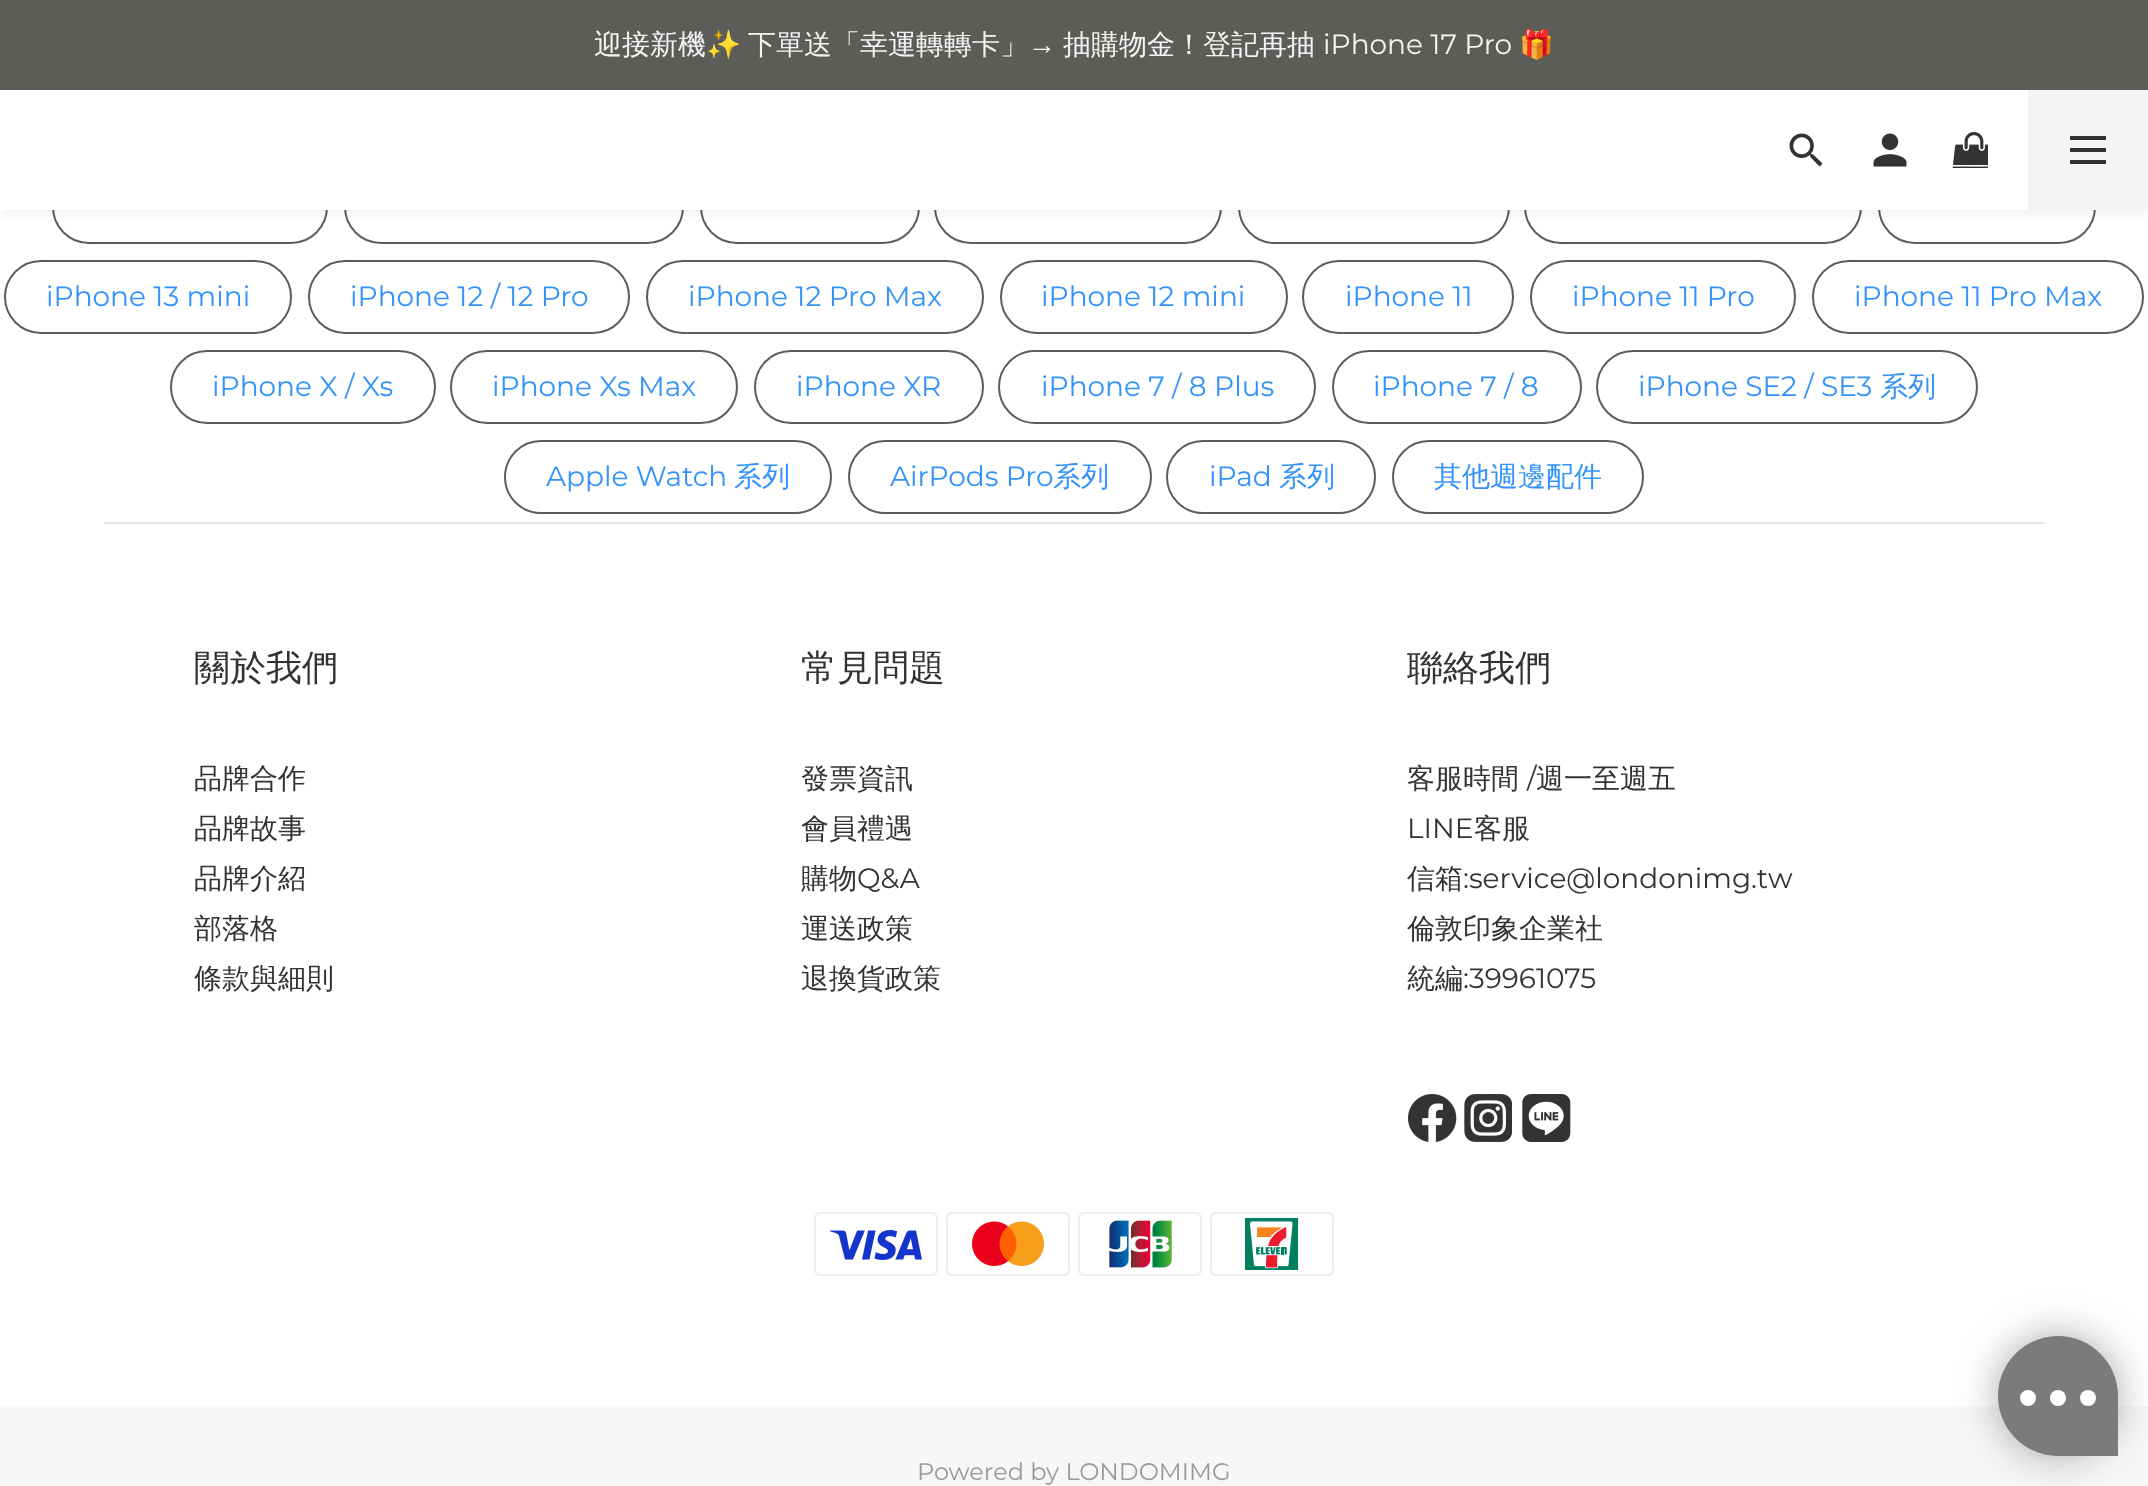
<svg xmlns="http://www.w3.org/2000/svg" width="2148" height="1486">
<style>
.a{font:500 28px WenQuanYi Zen Hei;fill:#f4f4f4}
.b{font:28px Noto Color Emoji;fill:#f4f4f4}
.c{font:28px Liberation Sans;fill:#f4f4f4}
.d{font:28px Montserrat;fill:#f4f4f4}
.e{font:28px Montserrat;fill:#3493fb}
.f{font:500 28px WenQuanYi Zen Hei;fill:#3493fb}
.g{font:500 36px WenQuanYi Zen Hei;fill:#333}
.h{font:500 28px WenQuanYi Zen Hei;fill:#333}
.i{font:28px Montserrat;fill:#333}
.j{font:24px Montserrat;fill:#999}
</style>
<rect width="100%" height="100%" fill="#fff"/>
<path fill="#5c5c58" d="M0 0h2148v90H0z"/>
<rect fill="none" stroke="#5a5d62" stroke-width="2" x="53" y="171" width="274" height="72" rx="36"/>
<rect fill="none" stroke="#5a5d62" stroke-width="2" x="345" y="171" width="338" height="72" rx="36"/>
<rect fill="none" stroke="#5a5d62" stroke-width="2" x="701" y="171" width="218" height="72" rx="36"/>
<rect fill="none" stroke="#5a5d62" stroke-width="2" x="935" y="171" width="286" height="72" rx="36"/>
<rect fill="none" stroke="#5a5d62" stroke-width="2" x="1239" y="171" width="270" height="72" rx="36"/>
<rect fill="none" stroke="#5a5d62" stroke-width="2" x="1525" y="171" width="336" height="72" rx="36"/>
<rect fill="none" stroke="#5a5d62" stroke-width="2" x="1879" y="171" width="216" height="72" rx="36"/>
<path fill="#0000000f" filter="blur(6px)" d="M0 94h2148v120H0z"/>
<path fill="#fff" d="M0 90h2028v120H0z"/>
<image href="1.png" x="1789" y="133" width="34" height="34"/>
<image href="2.png" x="1873" y="133" width="34" height="34"/>
<image href="3.png" x="1952" y="132" width="36" height="36"/>
<path fill="#f5f5f5" d="M2028 90h120v120H2028z"/>
<path fill="#333" d="M2070 148h36v4H2070z"/>
<path fill="#333" d="M2070 136h36v4H2070z"/>
<path fill="#333" d="M2070 160h36v4H2070z"/>
<rect fill="none" stroke="#5a5d62" stroke-width="2" x="5" y="261" width="286" height="72" rx="36"/>
<rect fill="none" stroke="#5a5d62" stroke-width="2" x="309" y="261" width="320" height="72" rx="36"/>
<rect fill="none" stroke="#5a5d62" stroke-width="2" x="647" y="261" width="336" height="72" rx="36"/>
<rect fill="none" stroke="#5a5d62" stroke-width="2" x="1001" y="261" width="286" height="72" rx="36"/>
<rect fill="none" stroke="#5a5d62" stroke-width="2" x="1303" y="261" width="210" height="72" rx="36"/>
<rect fill="none" stroke="#5a5d62" stroke-width="2" x="1531" y="261" width="264" height="72" rx="36"/>
<rect fill="none" stroke="#5a5d62" stroke-width="2" x="1813" y="261" width="330" height="72" rx="36"/>
<rect fill="none" stroke="#5a5d62" stroke-width="2" x="171" y="351" width="264" height="72" rx="36"/>
<rect fill="none" stroke="#5a5d62" stroke-width="2" x="451" y="351" width="286" height="72" rx="36"/>
<rect fill="none" stroke="#5a5d62" stroke-width="2" x="755" y="351" width="228" height="72" rx="36"/>
<rect fill="none" stroke="#5a5d62" stroke-width="2" x="999" y="351" width="316" height="72" rx="36"/>
<rect fill="none" stroke="#5a5d62" stroke-width="2" x="1333" y="351" width="248" height="72" rx="36"/>
<rect fill="none" stroke="#5a5d62" stroke-width="2" x="1597" y="351" width="380" height="72" rx="36"/>
<rect fill="none" stroke="#5a5d62" stroke-width="2" x="505" y="441" width="326" height="72" rx="36"/>
<rect fill="none" stroke="#5a5d62" stroke-width="2" x="849" y="441" width="302" height="72" rx="36"/>
<rect fill="none" stroke="#5a5d62" stroke-width="2" x="1167" y="441" width="208" height="72" rx="36"/>
<rect fill="none" stroke="#5a5d62" stroke-width="2" x="1393" y="441" width="250" height="72" rx="36"/>
<path fill="#e6e6e6" d="M104 522h1940v2H104z"/>
<image href="4.png" x="1408" y="1094" width="49" height="48"/>
<image href="5.png" x="1464" y="1094" width="48" height="48"/>
<image href="6.png" x="1522" y="1094" width="49" height="48"/>
<image href="7.png" x="814" y="1212" width="124" height="64"/>
<image href="8.png" x="946" y="1212" width="124" height="64"/>
<image href="9.png" x="1078" y="1212" width="124" height="64"/>
<image href="10.png" x="1210" y="1212" width="124" height="64"/>
<path fill="#f7f7f7" d="M0 1406h2148v80H0z"/>
<rect fill="#777777a3" filter="blur(20px)" x="1998" y="1336" width="120" height="120" rx="60"/>
<path fill="#7b7b7b" d="M2058 1336c33 0 60 27 60 60v60h-60c-33 0-60-27-60-60c0-33 27-60 60-60z"/>
<circle fill="#fff" cx="2028" cy="1398" r="8"/>
<circle fill="#fff" cx="2058" cy="1398" r="8"/>
<circle fill="#fff" cx="2088" cy="1398" r="8"/>
<text class="a" x="594" y="54">迎接新機</text>
<text class="b" x="706" y="54">✨</text>
<text class="a" x="748" y="54">下單送「幸運轉轉卡」</text>
<text class="c" x="1028" y="54">→</text>
<text class="a" x="1063" y="54">抽購物金！登記再抽</text>
<text class="d" x="1323" y="54">iPhone 17 Pro</text>
<text class="b" x="1519" y="54">🎁</text>
<text class="e" x="46" y="306">iPhone 13 mini</text>
<text class="e" x="350" y="306">iPhone 12 / 12 Pro</text>
<text class="e" x="688" y="306">iPhone 12 Pro Max</text>
<text class="e" x="1041" y="306">iPhone 12 mini</text>
<text class="e" x="1345" y="306">iPhone 11</text>
<text class="e" x="1572" y="306">iPhone 11 Pro</text>
<text class="e" x="1854" y="306">iPhone 11 Pro Max</text>
<text class="e" x="212" y="396">iPhone X / Xs</text>
<text class="e" x="492" y="396">iPhone Xs Max</text>
<text class="e" x="796" y="396">iPhone XR</text>
<text class="e" x="1041" y="396">iPhone 7 / 8 Plus</text>
<text class="e" x="1373" y="396">iPhone 7 / 8</text>
<text class="e" x="1638" y="396">iPhone SE2 / SE3</text>
<text class="f" x="1880" y="396">系列</text>
<text class="e" x="546" y="486">Apple Watch</text>
<text class="f" x="734" y="486">系列</text>
<text class="e" x="890" y="486">AirPods Pro</text>
<text class="f" x="1053" y="486">系列</text>
<text class="e" x="1209" y="486">iPad</text>
<text class="f" x="1279" y="486">系列</text>
<text class="f" x="1434" y="486">其他週邊配件</text>
<text class="g" x="194" y="680">關於我們</text>
<text class="h" x="194" y="788">品牌合作</text>
<text class="h" x="194" y="838">品牌故事</text>
<text class="h" x="194" y="888">品牌介紹</text>
<text class="h" x="194" y="938">部落格</text>
<text class="h" x="194" y="988">條款與細則</text>
<text class="g" x="801" y="680">常見問題</text>
<text class="h" x="801" y="788">發票資訊</text>
<text class="h" x="801" y="838">會員禮遇</text>
<text class="h" x="801" y="888">購物</text>
<text class="i" x="857" y="888">Q&amp;A</text>
<text class="h" x="801" y="938">運送政策</text>
<text class="h" x="801" y="988">退換貨政策</text>
<text class="g" x="1407" y="680">聯絡我們</text>
<text class="h" x="1407" y="788">客服時間</text>
<text class="i" x="1527" y="788">/</text>
<text class="h" x="1536" y="788">週一至週五</text>
<text class="i" x="1407" y="838">LINE</text>
<text class="h" x="1474" y="838">客服</text>
<text class="h" x="1407" y="888">信箱</text>
<text class="i" x="1463" y="888">:service@londonimg.tw</text>
<text class="h" x="1407" y="938">倫敦印象企業社</text>
<text class="h" x="1407" y="988">統編</text>
<text class="i" x="1463" y="988">:39961075</text>
<text class="j" x="917" y="1480">Powered by LONDOMIMG</text>
</svg>
